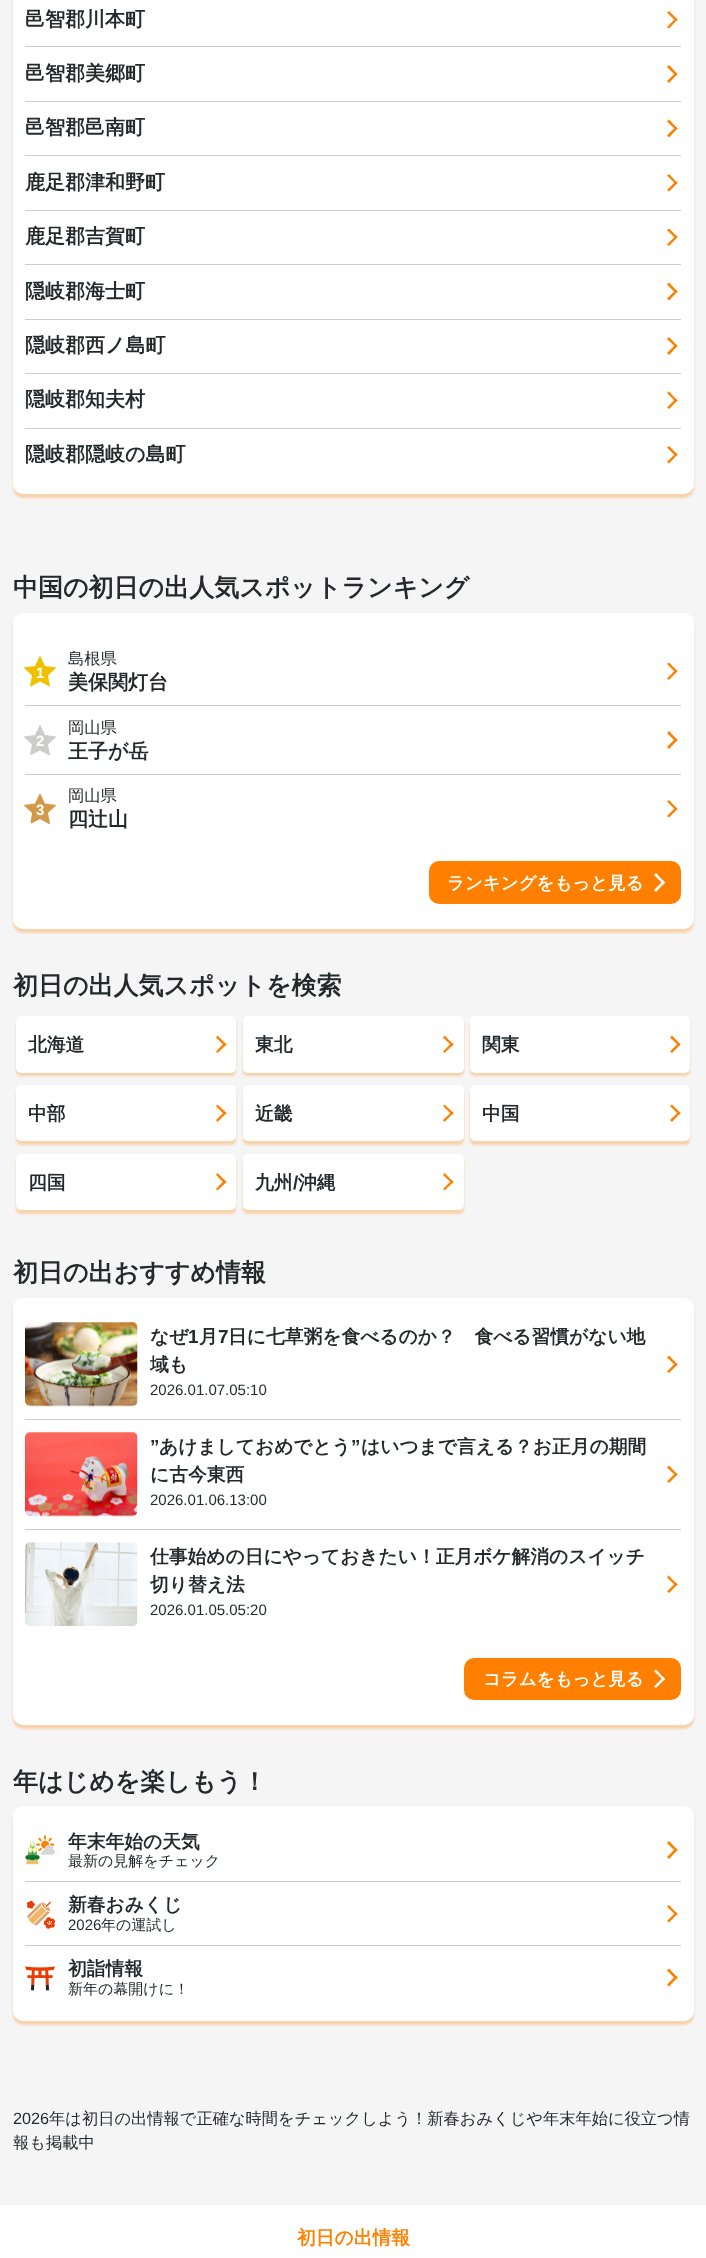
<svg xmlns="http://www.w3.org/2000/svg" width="706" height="2258">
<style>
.a{font:bold 20px WenQuanYi Zen Hei;fill:#242a2c}
.b{font:bold 25px WenQuanYi Zen Hei;fill:#242a2c}
.c{font:bold 15px Liberation Sans;fill:#fff}
.d{font:500 16.25px WenQuanYi Zen Hei;fill:#242a2c}
.e{font:bold 17.5px WenQuanYi Zen Hei;fill:#fff}
.f{font:bold 18.75px WenQuanYi Zen Hei;fill:#242a2c}
.g{font:bold 18.75px Liberation Sans;fill:#242a2c}
.h{font:15px Liberation Sans;fill:#242a2c}
.i{font:500 15px WenQuanYi Zen Hei;fill:#242a2c}
.j{font:16.25px Liberation Sans;fill:#242a2c}
.k{font:bold 18.75px WenQuanYi Zen Hei;fill:#ff8000}
</style>
<rect width="100%" height="100%" fill="#f5f5f5"/>
<rect fill="#ff80004d" filter="blur(1px)" x="13" y="-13" width="681" height="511" rx="10"/>
<rect fill="#fff" x="13" y="-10" width="681" height="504" rx="10"/>
<path fill="#ccc" d="M25 46h656v1H25z"/>
<path fill="#ff8000" d="M667 12.5l2-1.5l8.5 8.5l-1.5 2z"/>
<path fill="#ff8000" d="M667 27l9-9l1.5 1.5l-8.5 9z"/>
<path fill="#ccc" d="M25 101h656v1H25z"/>
<path fill="#ff8000" d="M667 67l2-2l8.5 9l-1.5 2z"/>
<path fill="#ff8000" d="M667 81l9-8.5l1.5 1.5l-8.5 9z"/>
<path fill="#ccc" d="M25 155h656v1H25z"/>
<path fill="#ff8000" d="M667 121.5l2-2l8.5 9l-1.5 1.5z"/>
<path fill="#ff8000" d="M667 135.5l9-9l1.5 2l-8.5 9z"/>
<path fill="#ccc" d="M25 210h656v1H25z"/>
<path fill="#ff8000" d="M667 175.5l2-1.5l8.5 9l-1.5 1.5z"/>
<path fill="#ff8000" d="M667 190l9-9l1.5 2l-8.5 8.5z"/>
<path fill="#ccc" d="M25 264h656v1H25z"/>
<path fill="#ff8000" d="M667 230l2-1.5l8.5 8.5l-1.5 2z"/>
<path fill="#ff8000" d="M667 244.5l9-9l1.5 1.5l-8.5 9z"/>
<path fill="#ccc" d="M25 319h656v1H25z"/>
<path fill="#ff8000" d="M667 284.5l2-2l8.5 9l-1.5 2z"/>
<path fill="#ff8000" d="M667 298.5l9-8.5l1.5 1.5l-8.5 9z"/>
<path fill="#ccc" d="M25 373h656v1H25z"/>
<path fill="#ff8000" d="M667 339l2-2l8.5 9l-1.5 1.5z"/>
<path fill="#ff8000" d="M667 353l9-9l1.5 2l-8.5 9z"/>
<path fill="#ccc" d="M25 428h656v1H25z"/>
<path fill="#ff8000" d="M667 393l2-1.5l8.5 9l-1.5 1.5z"/>
<path fill="#ff8000" d="M667 407.5l9-9l1.5 2l-8.5 8.5z"/>
<path fill="#ff8000" d="M667 447.5l2-1.5l8.5 8.5l-1.5 2z"/>
<path fill="#ff8000" d="M667 462l9-9l1.5 1.5l-8.5 9z"/>
<rect fill="#ff80004d" filter="blur(1px)" x="13" y="616" width="681" height="317" rx="10"/>
<rect fill="#fff" x="13" y="613" width="681" height="316" rx="10"/>
<path fill="#ccc" d="M25 705h656v1H25z"/>
<path fill="#efc100" d="M40 655.5l5 10.5l11.5 1.5l-8.5 8l2 11h-.5l-9.5-5l-9 5l-1-1l2-10l-8.5-8l11.5-1.5z"/>
<path fill="#ff8000" d="M667 664l2-1.5l8.5 8.5l-1.5 2z"/>
<path fill="#ff8000" d="M667 678.5l9-9l1.5 1.5l-8.5 9z"/>
<path fill="#ccc" d="M25 774h656v1H25z"/>
<path fill="#ccccca" d="M40 724.5l5 10.5l11.5 1.5l-8.5 8l2 10.5l-.5 .5l-9.5-5l-9 4.5l-1-.5l2-10l-8.5-8l11.5-1.5z"/>
<path fill="#ff8000" d="M667 733l2-2l8.5 9l-1.5 2z"/>
<path fill="#ff8000" d="M667 747l9-9l1.5 2l-8.5 9z"/>
<path fill="#d3984a" d="M40 793l5 10.5l11.5 1.5l-8.5 8l2 10.5l-1 .5l-9-5l-8.5 4.5l-1-1l1.5-9.5l-8.5-8l11.5-1.5z"/>
<path fill="#ff8000" d="M667 801.5l2-1.5l8.5 9l-1.5 1.5z"/>
<path fill="#ff8000" d="M667 816l9-9l1.5 2l-8.5 8.5z"/>
<rect fill="#ff8000" x="429" y="861" width="252" height="43" rx="10"/>
<path fill="#fff" d="M654 875l2-2l9 9.5l-1.5 2z"/>
<path fill="#fff" d="M654 890l9.5-9.5l1.5 2l-9 9.5z"/>
<rect fill="#ff80004d" filter="blur(1px)" x="16" y="1020" width="220" height="56" rx="5"/>
<rect fill="#fff" x="16" y="1016" width="220" height="57" rx="5"/>
<path fill="#ff8000" d="M216 1037.5l1.5-2l9 9l-2 1.5z"/>
<path fill="#ff8000" d="M216 1051.5l8.5-9l2 2l-9 8.5z"/>
<rect fill="#ff80004d" filter="blur(1px)" x="243" y="1020" width="221" height="56" rx="5"/>
<rect fill="#fff" x="243" y="1016" width="221" height="57" rx="5"/>
<path fill="#ff8000" d="M443 1037.5l1.5-2l9 9l-1.5 1.5z"/>
<path fill="#ff8000" d="M443 1051.5l9-9l1.5 2l-9 8.5z"/>
<rect fill="#ff80004d" filter="blur(1px)" x="470" y="1020" width="220" height="56" rx="5"/>
<rect fill="#fff" x="470" y="1016" width="220" height="57" rx="5"/>
<path fill="#ff8000" d="M670 1037.5l2-2l8.5 9l-1.5 1.5z"/>
<path fill="#ff8000" d="M670 1051.5l9-9l1.5 2l-8.5 8.5z"/>
<rect fill="#ff80004d" filter="blur(1px)" x="16" y="1089" width="220" height="56" rx="5"/>
<rect fill="#fff" x="16" y="1085" width="220" height="56" rx="5"/>
<path fill="#ff8000" d="M216 1106l1.5-1.5l9 8.5l-2 2z"/>
<path fill="#ff8000" d="M216 1120l8.5-8.5l2 1.5l-9 9z"/>
<rect fill="#ff80004d" filter="blur(1px)" x="243" y="1089" width="221" height="56" rx="5"/>
<rect fill="#fff" x="243" y="1085" width="221" height="56" rx="5"/>
<path fill="#ff8000" d="M443 1106l1.5-1.5l9 8.5l-1.5 2z"/>
<path fill="#ff8000" d="M443 1120l9-8.5l1.5 1.5l-9 9z"/>
<rect fill="#ff80004d" filter="blur(1px)" x="470" y="1089" width="220" height="56" rx="5"/>
<rect fill="#fff" x="470" y="1085" width="220" height="56" rx="5"/>
<path fill="#ff8000" d="M670 1106l2-1.5l8.5 8.5l-1.5 2z"/>
<path fill="#ff8000" d="M670 1120l9-8.5l1.5 1.5l-8.5 9z"/>
<rect fill="#ff80004d" filter="blur(1px)" x="16" y="1158" width="220" height="56" rx="5"/>
<rect fill="#fff" x="16" y="1154" width="220" height="56" rx="5"/>
<path fill="#ff8000" d="M216 1175l1.5-2l9 9l-2 1.5z"/>
<path fill="#ff8000" d="M216 1189l8.5-9l2 2l-9 8.5z"/>
<rect fill="#ff80004d" filter="blur(1px)" x="243" y="1158" width="221" height="56" rx="5"/>
<rect fill="#fff" x="243" y="1154" width="221" height="56" rx="5"/>
<path fill="#ff8000" d="M443 1175l1.5-2l9 9l-1.5 1.5z"/>
<path fill="#ff8000" d="M443 1189l9-9l1.5 2l-9 8.5z"/>
<rect fill="#ff80004d" filter="blur(1px)" x="13" y="1301" width="681" height="428" rx="10"/>
<rect fill="#fff" x="13" y="1298" width="681" height="427" rx="10"/>
<path fill="#ccc" d="M25 1419h656v1H25z"/>
<image href="1.png" x="25" y="1322" width="113" height="85"/>
<path fill="#ff8000" d="M667 1357.5l2-2l8.5 9l-1.5 1.5z"/>
<path fill="#ff8000" d="M667 1371.5l9-9l1.5 2l-8.5 8.5z"/>
<path fill="#ccc" d="M25 1529h656v1H25z"/>
<image href="2.png" x="25" y="1432" width="113" height="85"/>
<path fill="#ff8000" d="M667 1467.5l2-2l8.5 9l-1.5 1.5z"/>
<path fill="#ff8000" d="M667 1481.5l9-9l1.5 2l-8.5 8.5z"/>
<image href="3.png" x="25" y="1542" width="113" height="84"/>
<path fill="#ff8000" d="M667 1577.5l1.5-2l9 9l-1.5 1.5z"/>
<path fill="#ff8000" d="M667 1591.5l9-9l1.5 2l-8.5 8.5z"/>
<rect fill="#ff8000" x="464" y="1658" width="217" height="42" rx="10"/>
<path fill="#fff" d="M654 1671l2-1.5l9 9.5l-1.5 1.5z"/>
<path fill="#fff" d="M654 1686.5l9.5-9.5l1.5 2l-9 9z"/>
<rect fill="#ff80004d" filter="blur(1px)" x="13" y="1810" width="681" height="215" rx="10"/>
<rect fill="#fff" x="13" y="1806" width="681" height="215" rx="10"/>
<path fill="#ccc" d="M25 1881h656v1H25z"/>
<image href="4.png" x="25" y="1835" width="30" height="30"/>
<path fill="#ff8000" d="M667 1843l2-2l8.5 9l-1.5 2z"/>
<path fill="#ff8000" d="M667 1857l9-9l1.5 2l-8.5 9z"/>
<path fill="#ccc" d="M25 1945h656v1H25z"/>
<image href="5.png" x="26" y="1900" width="29" height="29"/>
<path fill="#ff8000" d="M667 1906.5l2-1.5l8.5 9l-1.5 1.5z"/>
<path fill="#ff8000" d="M667 1921l9-9l1.5 2l-8.5 8.5z"/>
<image href="6.png" x="25" y="1966" width="30" height="25"/>
<path fill="#ff8000" d="M667 1970.5l2-2l8.5 9l-1.5 2z"/>
<path fill="#ff8000" d="M667 1984.5l9-9l1.5 2l-8.5 9z"/>
<path fill="#fff" d="M0 2205h706v53H0z"/>
<text class="a" x="25" y="26">邑智郡川本町</text>
<text class="a" x="25" y="80">邑智郡美郷町</text>
<text class="a" x="25" y="134">邑智郡邑南町</text>
<text class="a" x="25" y="189">鹿足郡津和野町</text>
<text class="a" x="25" y="243">鹿足郡吉賀町</text>
<text class="a" x="25" y="298">隠岐郡海士町</text>
<text class="a" x="25" y="352">隠岐郡西ノ島町</text>
<text class="a" x="25" y="406">隠岐郡知夫村</text>
<text class="a" x="25" y="461">隠岐郡隠岐の島町</text>
<text class="b" x="13" y="596">中国の初日の出人気スポットランキング</text>
<text class="c" x="36" y="678">1</text>
<text class="d" x="68" y="664">島根県</text>
<text class="a" x="68" y="689">美保関灯台</text>
<text class="c" x="36" y="746">2</text>
<text class="d" x="68" y="733">岡山県</text>
<text class="a" x="68" y="758">王子が岳</text>
<text class="c" x="36" y="815">3</text>
<text class="d" x="68" y="801">岡山県</text>
<text class="a" x="68" y="826">四辻山</text>
<text class="e" x="447" y="889">ランキングをもっと見る</text>
<text class="b" x="13" y="994">初日の出人気スポットを検索</text>
<text class="f" x="28" y="1051">北海道</text>
<text class="f" x="255" y="1051">東北</text>
<text class="f" x="482" y="1051">関東</text>
<text class="f" x="28" y="1120">中部</text>
<text class="f" x="255" y="1120">近畿</text>
<text class="f" x="482" y="1120">中国</text>
<text class="f" x="28" y="1189">四国</text>
<text class="f" x="255" y="1189">九州</text>
<text class="g" x="293" y="1189">/</text>
<text class="f" x="298" y="1189">沖縄</text>
<text class="b" x="13" y="1281">初日の出おすすめ情報</text>
<text class="f" x="150" y="1343">なぜ</text>
<text class="g" x="188" y="1343">1</text>
<text class="f" x="199" y="1343">月</text>
<text class="g" x="218" y="1343">7</text>
<text class="f" x="228" y="1343">日に七草粥を食べるのか？　食べる習慣がない地</text>
<text class="f" x="150" y="1371">域も</text>
<text class="h" x="150" y="1395">2026.01.07.05:10</text>
<text class="g" x="150" y="1453">”</text>
<text class="f" x="159" y="1453">あけましておめでとう</text>
<text class="g" x="351" y="1453">”</text>
<text class="f" x="361" y="1453">はいつまで言える？お正月の期間</text>
<text class="f" x="150" y="1481">に古今東西</text>
<text class="h" x="150" y="1505">2026.01.06.13:00</text>
<text class="f" x="150" y="1563">仕事始めの日にやっておきたい！正月ボケ解消のスイッチ</text>
<text class="f" x="150" y="1591">切り替え法</text>
<text class="h" x="150" y="1615">2026.01.05.05:20</text>
<text class="e" x="483" y="1685">コラムをもっと見る</text>
<text class="b" x="13" y="1790">年はじめを楽しもう！</text>
<text class="f" x="68" y="1848">年末年始の天気</text>
<text class="i" x="68" y="1866">最新の見解をチェック</text>
<text class="f" x="68" y="1911">新春おみくじ</text>
<text class="h" x="68" y="1930">2026</text>
<text class="i" x="101" y="1930">年の運試し</text>
<text class="f" x="68" y="1975">初詣情報</text>
<text class="i" x="68" y="1994">新年の幕開けに！</text>
<text class="j" x="13" y="2124">2026</text>
<text class="d" x="49" y="2124">年は初日の出情報で正確な時間をチェックしよう！新春おみくじや年末年始に役立つ情</text>
<text class="d" x="13" y="2148">報も掲載中</text>
<text class="k" x="297" y="2244">初日の出情報</text>
</svg>
